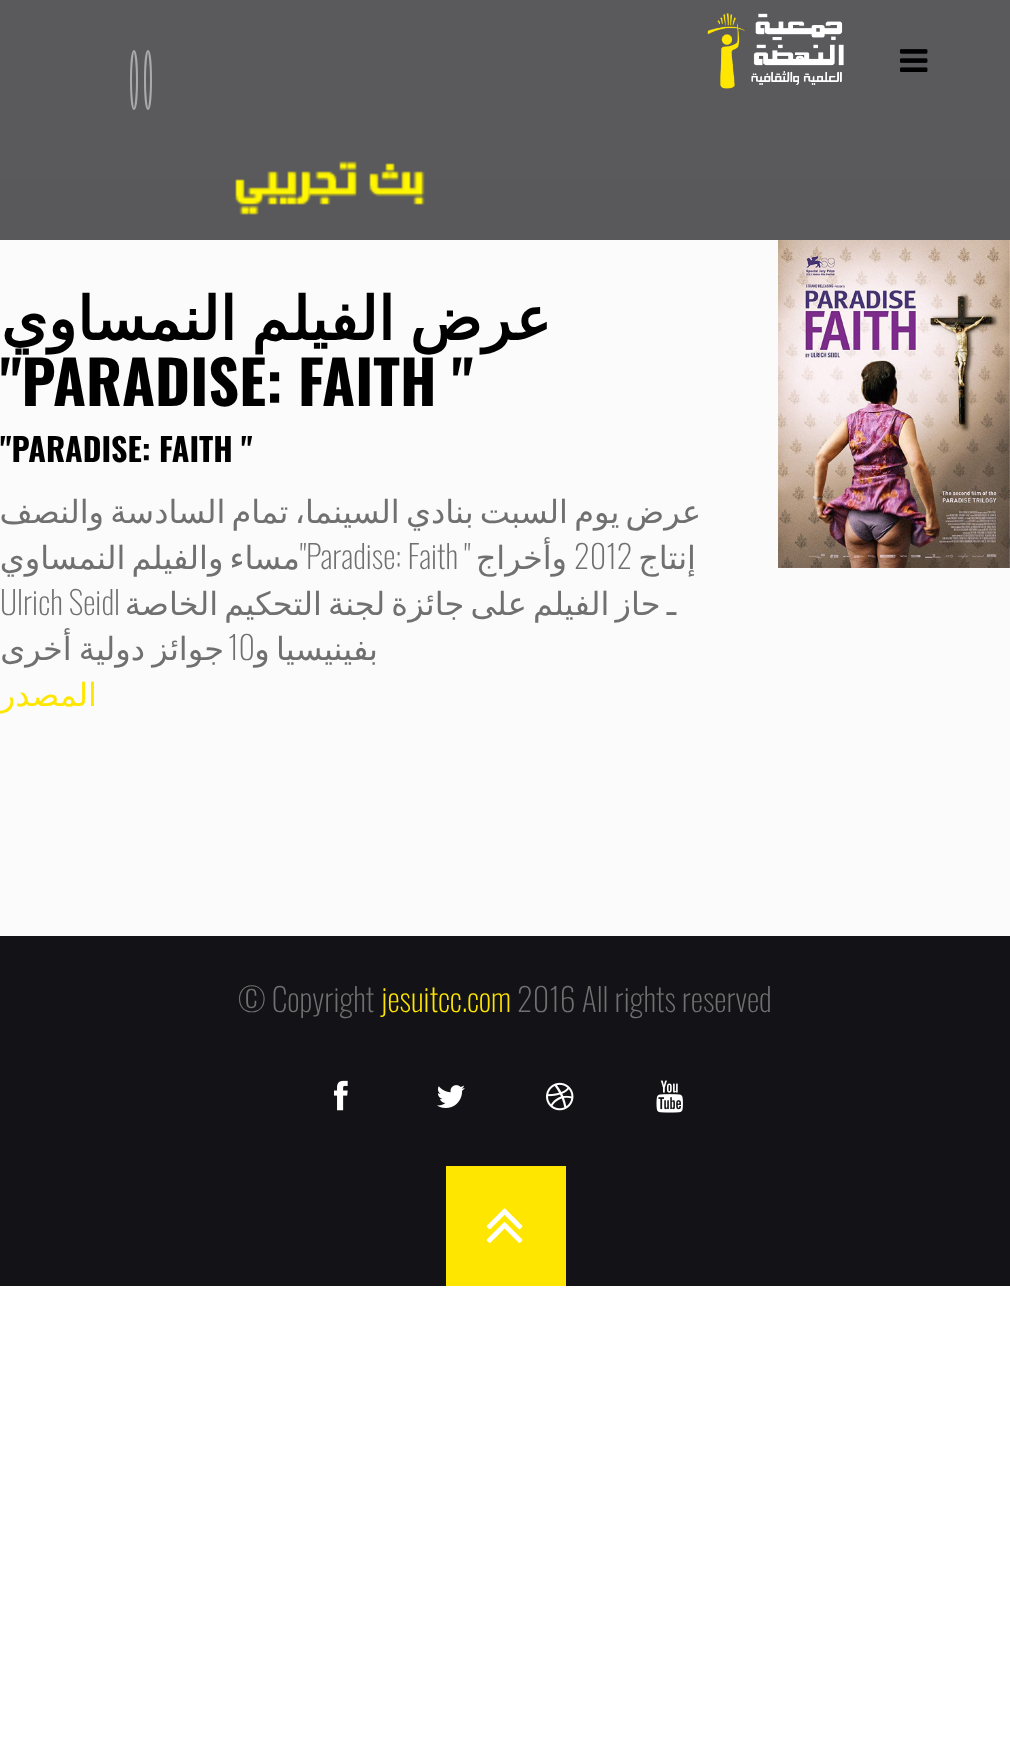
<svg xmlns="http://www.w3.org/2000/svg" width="1010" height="1752">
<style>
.a{font:bold 60px DejaVu Sans;direction:rtl;fill:#000}
.b{font:bold 60px Oswald;fill:#000}
.c{font:bold 32px Oswald;fill:#000}
.d{font:32px DejaVu Sans;direction:rtl;fill:#707070}
.e{font:200 32px Oswald;fill:#707070}
.f{font:32px DejaVu Sans;direction:rtl;fill:#ffe600}
.g{font:200 32px Oswald;fill:#ffe600}
</style>
<rect width="100%" height="100%" fill="#fff"/>
<path fill="#5a5a5c" d="M0 0h1010v180H0z"/>
<image href="1.png" x="900" y="49" width="28" height="23"/>
<image href="2.png" x="707" y="13" width="137" height="76"/>
<path fill="none" stroke="#aaa" stroke-width="2" d="M134 51c1.5 0 3 13 3 29c0 16-1.5 29-3 29c-1.5 0-3-13-3-29c0-16 1.5-29 3-29zm14 0c1.5 0 3 13 3 29c0 16-1.5 29-3 29c-1.5 0-3-13-3-29c0-16 1.5-29 3-29z"/>
<path fill="#59595b" d="M0 180h1010v60H0z"/>
<image href="3.png" x="235" y="161" width="190" height="54"/>
<path fill="#fbfbfb" d="M0 240h1010v696H0z"/>
<image href="4.png" x="778" y="240" width="232" height="328"/>
<path fill="#131217" d="M0 936h1010v350H0z"/>
<image href="5.png" x="656" y="1080" width="27" height="33"/>
<image href="6.png" x="546" y="1082" width="28" height="29"/>
<image href="7.png" x="437" y="1085" width="28" height="23"/>
<image href="8.png" x="334" y="1080" width="14" height="31"/>
<path fill="#ffe600" d="M446 1166h120v120H446z"/>
<image href="9.png" x="486" y="1208" width="37" height="35"/>
<text class="a" x="551" y="340" word-spacing="-4">عرض الفيلم النمساوي</text>
<text class="b" x="0" y="406">"PARADISE: FAITH "</text>
<text class="c" x="0" y="462">"PARADISE: FAITH "</text>
<text class="d" x="701" y="523" word-spacing="-4">عرض يوم السبت بنادي السينما، تمام السادسة والنصف</text>
<text class="d" x="696" y="569">إنتاج</text>
<text class="e" x="574" y="569">2012</text>
<text class="d" x="567" y="569">وأخراج</text>
<text class="d" x="300" y="569" word-spacing="-4">مساء والفيلم النمساوي</text>
<text class="e" x="300" y="569">"Paradise: Faith "</text>
<text class="d" x="676" y="615" word-spacing="-4">ـ حاز الفيلم على جائزة لجنة التحكيم الخاصة</text>
<text class="e" x="0" y="615">Ulrich Seidl</text>
<text class="d" x="378" y="660" word-spacing="-4">بفينيسيا و</text>
<text class="e" x="228" y="660">10</text>
<text class="d" x="224" y="660" word-spacing="-3">جوائز دولية أخرى</text>
<text class="f" x="97" y="706">المصدر</text>
<text class="e" x="517" y="1012">2016 All rights reserved</text>
<text class="g" x="381" y="1012">jesuitcc.com</text>
<text class="e" x="238" y="1012">© Copyright</text>
</svg>
